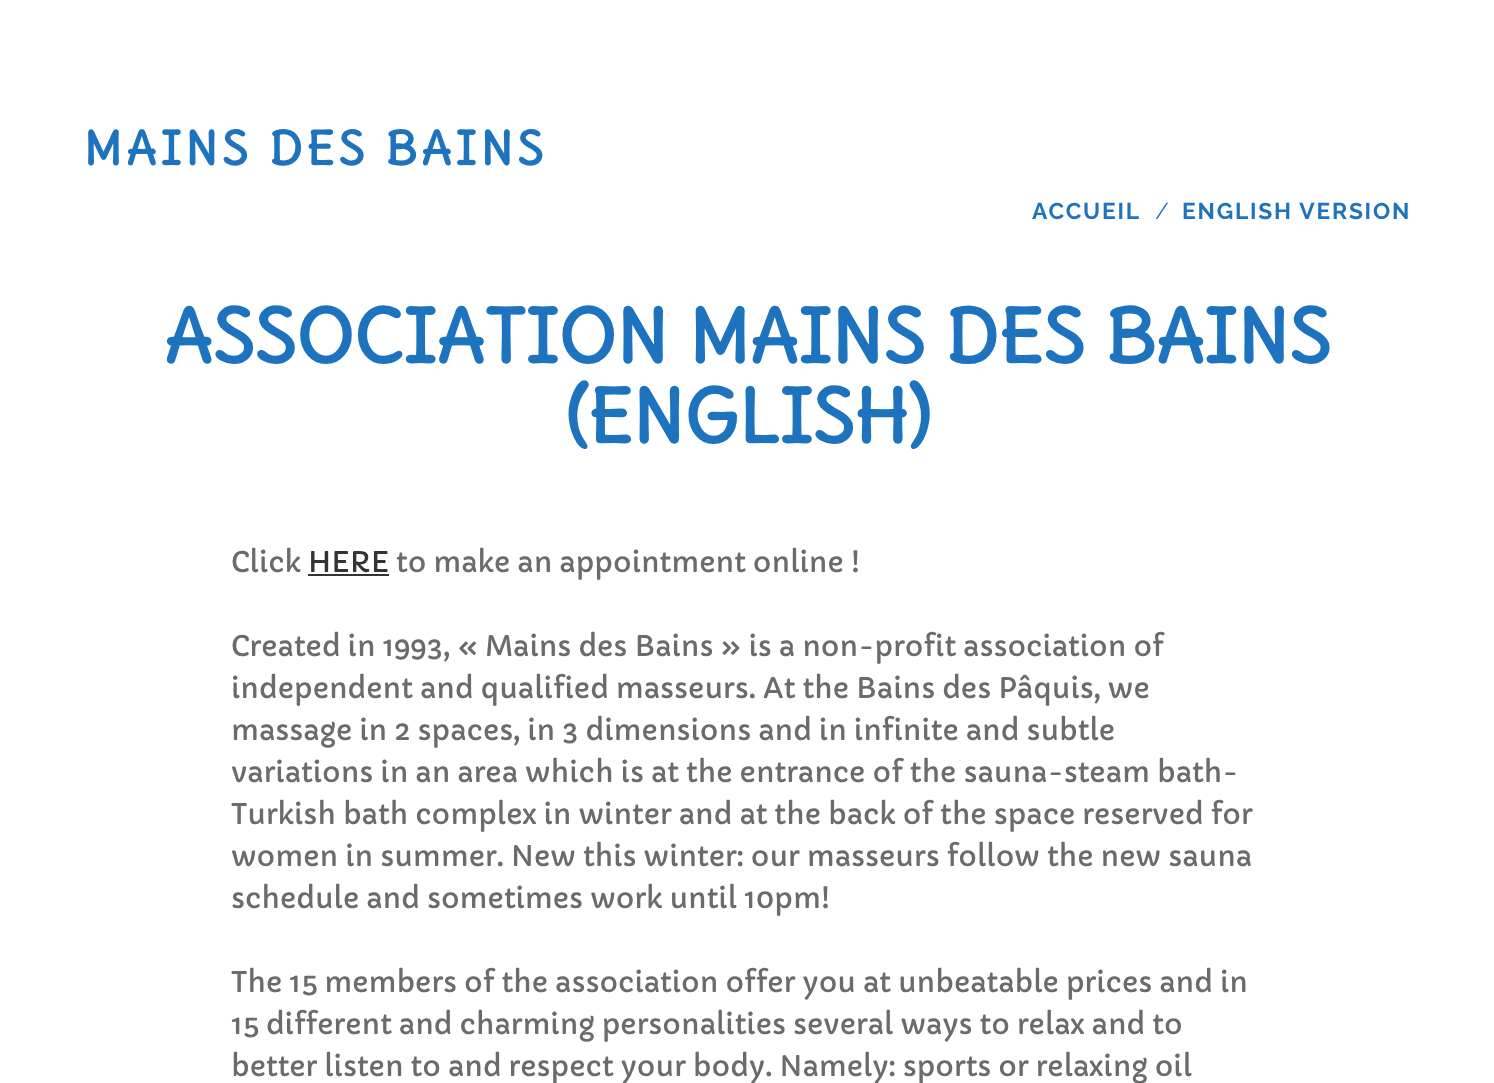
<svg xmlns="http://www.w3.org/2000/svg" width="1494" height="1083">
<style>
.a{font:bold 45.5px Delius Unicase;letter-spacing:2.75px;fill:#1e73be}
.b{font:bold 22.75px Raleway;letter-spacing:1.8px;fill:#1e73be}
.c{font:22.75px Raleway;fill:#1e73be}
.d{font:bold 72.75px Delius Unicase;letter-spacing:-2.2px;fill:#1e73be}
.e{font:28px Capriola;fill:#6b6b6b}
.f{font:28px Capriola;fill:#333}
</style>
<rect width="100%" height="100%" fill="#fff"/>
<path fill="#333" d="M308 574h81v2H308z"/>
<text class="a" x="83" y="165">MAINS DES BAINS</text>
<text class="b" x="1032" y="219">ACCUEIL</text>
<text class="c" x="1155" y="219">/</text>
<text class="b" x="1182" y="219">ENGLISH VERSION</text>
<text class="d" x="163" y="363">ASSOCIATION MAINS DES BAINS</text>
<text class="d" x="564" y="443">(ENGLISH)</text>
<text class="e" x="231" y="572">Click</text>
<text class="f" x="308" y="572">HERE</text>
<text class="e" x="396" y="572">to make an appointment online !</text>
<text class="e" x="231" y="656">Created in 1993, « Mains des Bains » is a non-profit association of</text>
<text class="e" x="231" y="698">independent and qualified masseurs. At the Bains des Pâquis, we</text>
<text class="e" x="231" y="740">massage in 2 spaces, in 3 dimensions and in infinite and subtle</text>
<text class="e" x="231" y="782">variations in an area which is at the entrance of the sauna-steam bath-</text>
<text class="e" x="231" y="824">Turkish bath complex in winter and at the back of the space reserved for</text>
<text class="e" x="231" y="866">women in summer. New this winter: our masseurs follow the new sauna</text>
<text class="e" x="231" y="908">schedule and sometimes work until 10pm!</text>
<text class="e" x="231" y="992">The 15 members of the association offer you at unbeatable prices and in</text>
<text class="e" x="231" y="1034">15 different and charming personalities several ways to relax and to</text>
<text class="e" x="231" y="1076">better listen to and respect your body. Namely: sports or relaxing oil</text>
</svg>
